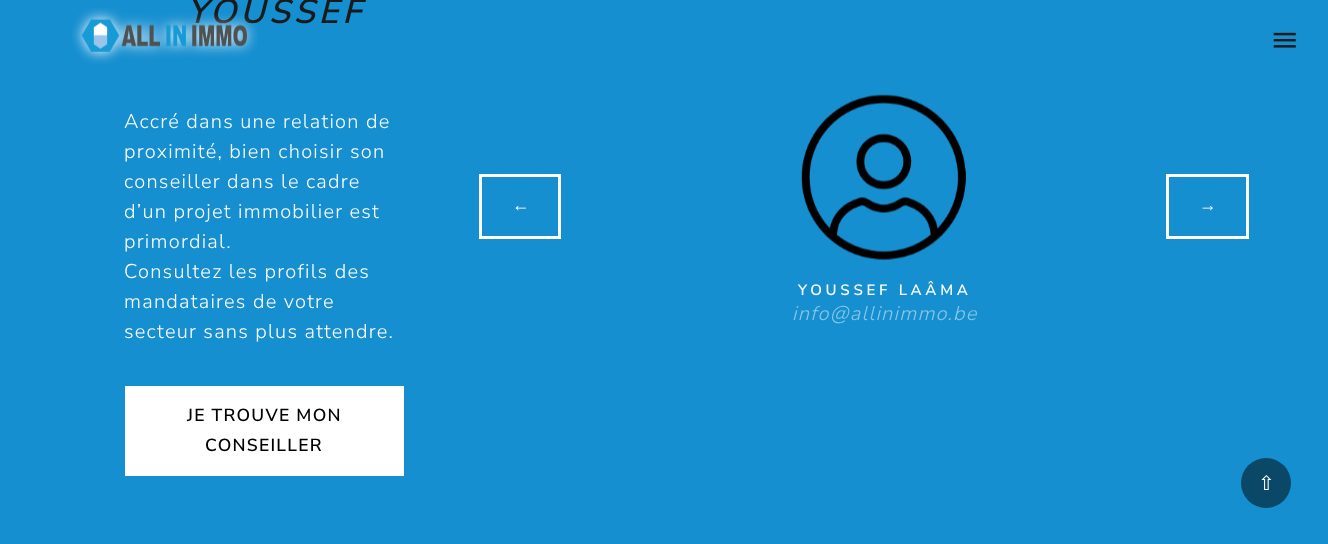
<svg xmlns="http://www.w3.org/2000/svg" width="1328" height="544">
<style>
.a{font:italic 600 34px Nunito Sans;letter-spacing:3.75px;fill:#1a1a1a}
.b{font:300 20px Nunito Sans;letter-spacing:1.25px;fill:#fff}
.c{font:600 17.5px Nunito Sans;letter-spacing:1.25px;fill:#000}
.d{font:bold 17.5px Liberation Sans;fill:#fff}
.e{font:600 15px Nunito Sans;letter-spacing:3.75px;fill:#fff}
.f{font:italic 300 20px Nunito Sans;letter-spacing:1.25px;fill:#8bc7e8}
.g{font:20px DejaVu Sans;fill:#fff}
</style>
<rect width="100%" height="100%" fill="#168fd0"/>
<path fill="#fff" d="M125 386h279v90H125z"/>
<path fill="none" stroke="#fff" stroke-width="3" d="M480.5 175.5h79v62H480.5z"/>
<path fill="none" stroke="#fff" stroke-width="3" d="M1167.5 175.5h80v62H1167.5z"/>
<image href="1.png" x="801" y="94" width="165" height="166"/>
<image href="3.png" x="1273" y="32" width="23" height="16"/>
<circle fill="#0b4868" cx="1266" cy="483" r="25"/>
<text class="a" x="187" y="23">YOUSSEF</text>
<text class="b" x="124" y="128">Accré dans une relation de</text>
<text class="b" x="124" y="158">proximité, bien choisir son</text>
<text class="b" x="124" y="188">conseiller dans le cadre</text>
<text class="b" x="124" y="218">d’un projet immobilier est</text>
<text class="b" x="124" y="248">primordial.</text>
<text class="b" x="124" y="278">Consultez les profils des</text>
<text class="b" x="124" y="308">mandataires de votre</text>
<text class="b" x="124" y="338">secteur sans plus attendre.</text>
<text class="c" x="187" y="421">JE TROUVE MON</text>
<text class="c" x="205" y="451">CONSEILLER</text>
<text class="d" x="512" y="211">←</text>
<text class="d" x="1199" y="211">→</text>
<text class="e" x="798" y="295">YOUSSEF LAÂMA</text>
<text class="f" x="792" y="320">info@allinimmo.be</text>
<image href="2.png" x="72" y="8" width="186" height="56"/>
<text class="g" x="1258" y="490">⇧</text>
</svg>
